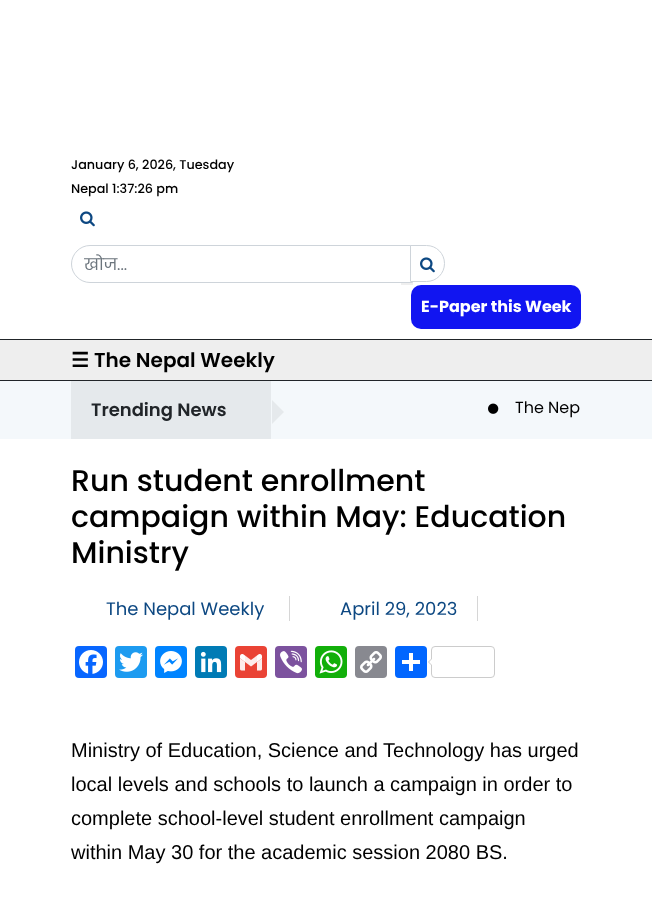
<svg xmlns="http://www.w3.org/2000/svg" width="652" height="905">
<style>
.a{font:500 12.75px Poppins;fill:#000}
.b{font:16px Poppins;fill:#6c757d}
.c{font:bold 16px Poppins;fill:#fff}
.d{font:bold 20px DejaVu Sans;fill:#000}
.e{font:600 20px Poppins;fill:#000}
.f{font:600 18px Poppins;fill:#212529}
.g{font:16px Poppins;fill:#000}
.h{font:500 30px Poppins;fill:#000}
.i{font:18px Poppins;fill:#0d4882}
.j{font:20px Liberation Sans;fill:#000}
</style>
<defs>
<clipPath id="clip1"><path d="M84 252h316v25H84z"/></clipPath>
</defs>
<rect width="100%" height="100%" fill="#fff"/>
<image href="1.png" x="80" y="211" width="15" height="16"/>
<path fill="none" stroke="#ced4da" d="M90 245.5h322.5v37h-322.5c-10 0-18.5-8.5-18.5-18.5c0-10 8.5-18.5 18.5-18.5z"/>
<path fill="#efefef" d="M401 283h12v2H401z"/>
<path fill="#fff" stroke="#ced4da" d="M410.5 245.5h16c10 0 18 8 18 18c0 10-8 18-18 18h-16z"/>
<image href="1.png" x="420" y="257" width="15" height="16"/>
<rect fill="#1115f1" x="411" y="285" width="170" height="44" rx="10"/>
<path fill="#eee" d="M0 340h652v40H0z"/>
<path fill="#212529" d="M0 339h652v1H0z"/>
<path fill="#212529" d="M0 380h652v1H0z"/>
<path fill="#f4f8fb" d="M0 381h652v58H0z"/>
<path fill="#e5e9ec" d="M71 381h200v58H71z"/>
<path fill="#e5e9ec" d="M272 424v-24l12 12z"/>
<image href="2.png" x="488" y="403" width="11" height="11"/>
<path fill="#d6d6d6" d="M289 596h1v25H289z"/>
<path fill="#d6d6d6" d="M477 596h1v25H477z"/>
<rect fill="#0866ff" x="75" y="646" width="32" height="32" rx="4"/>
<image href="3.png" x="79" y="650" width="24" height="24"/>
<rect fill="#1d9bf0" x="115" y="646" width="32" height="32" rx="4"/>
<image href="4.png" x="119" y="652" width="24" height="20"/>
<rect fill="#0084ff" x="155" y="646" width="32" height="32" rx="4"/>
<image href="5.png" x="160" y="651" width="22" height="22"/>
<rect fill="#007bb5" x="195" y="646" width="32" height="32" rx="4"/>
<image href="6.png" x="200" y="651" width="22" height="22"/>
<rect fill="#ea4335" x="235" y="646" width="32" height="32" rx="4"/>
<image href="7.png" x="240" y="654" width="22" height="17"/>
<rect fill="#7c529e" x="275" y="646" width="32" height="32" rx="4"/>
<image href="8.png" x="280" y="650" width="22" height="24"/>
<rect fill="#12af0a" x="315" y="646" width="32" height="32" rx="4"/>
<image href="9.png" x="319" y="650" width="24" height="24"/>
<rect fill="#888990" x="355" y="646" width="32" height="32" rx="4"/>
<image href="10.png" x="360" y="651" width="22" height="22"/>
<rect fill="#0166ff" x="395" y="646" width="32" height="32" rx="4"/>
<path fill="#fff" d="M409 653h4v18H409z"/>
<path fill="#fff" d="M402 660h18v4H402z"/>
<rect fill="none" stroke="#ccc" x="431.5" y="646.5" width="63" height="31" rx="3.5"/>
<path fill="#ccc" d="M432 658v8l-4-4z"/>
<path fill="#fff" d="M433 658v8l-4-4z"/>
<text class="a" x="71" y="169">January 6, 2026, Tuesday</text>
<text class="a" x="71" y="193">Nepal 1:37:26 pm</text>
<g clip-path="url(#clip1)">
<text class="b" x="84" y="270">खोज...</text>
</g>
<text class="c" x="421" y="312">E-Paper this Week</text>
<text class="d" x="71" y="367">☰</text>
<text class="e" x="94" y="367">The Nepal Weekly</text>
<text class="f" x="91" y="416">Trending News</text>
<text class="g" x="515" y="413">The Nep</text>
<text class="h" x="71" y="491">Run student enrollment</text>
<text class="h" x="71" y="527">campaign within May: Education</text>
<text class="h" x="71" y="563">Ministry</text>
<text class="i" x="106" y="615">The Nepal Weekly</text>
<text class="i" x="340" y="615">April 29, 2023</text>
<text class="j" x="71" y="757">Ministry of Education, Science and Technology has urged</text>
<text class="j" x="71" y="791">local levels and schools to launch a campaign in order to</text>
<text class="j" x="71" y="825">complete school-level student enrollment campaign</text>
<text class="j" x="71" y="859">within May 30 for the academic session 2080 BS.</text>
</svg>
